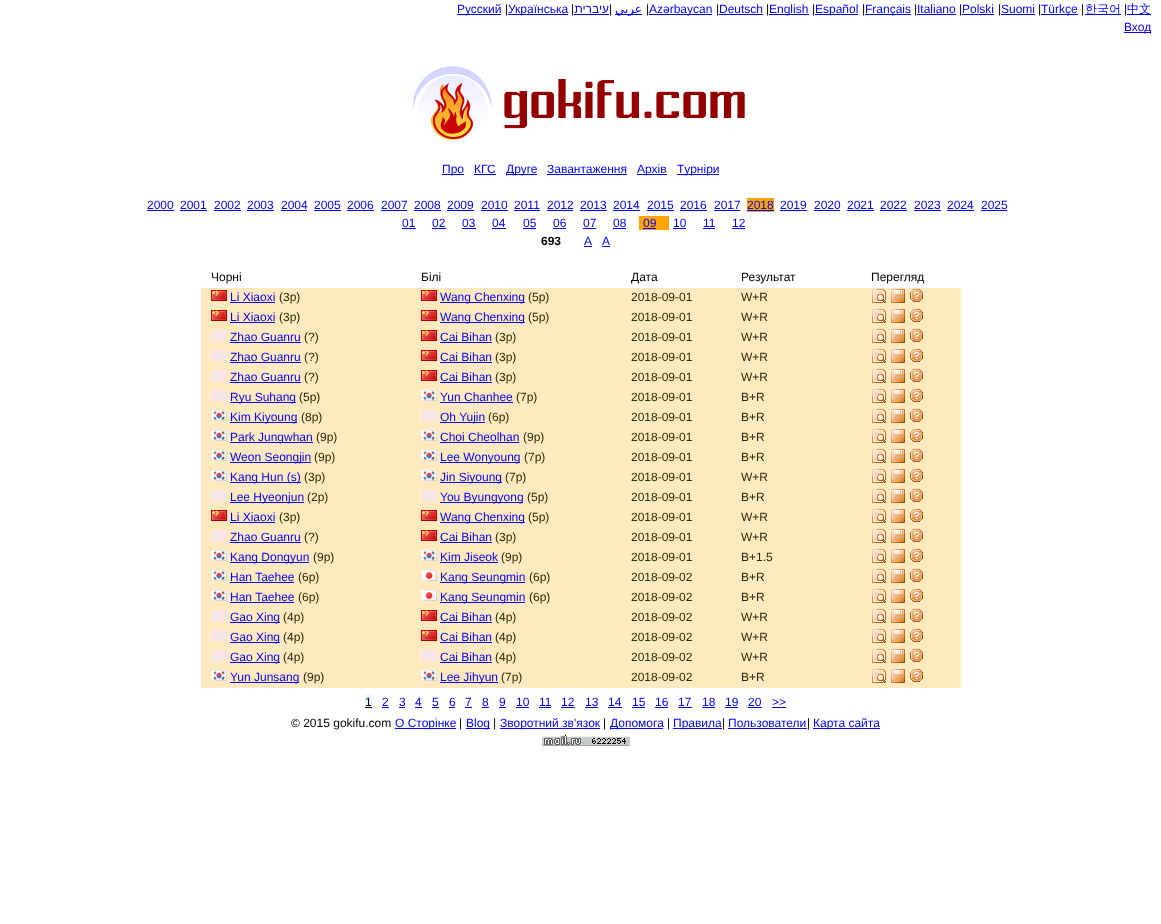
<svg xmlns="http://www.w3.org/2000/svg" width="1161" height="924">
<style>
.a{font:12px Liberation Sans;fill:#00f}
.b{font:12px Liberation Sans;fill:#000}
.c{font:12px Liberation Sans;direction:rtl;fill:#00f}
.d{font:12px DejaVu Sans;direction:rtl;fill:#00f}
.e{font:500 12px WenQuanYi Zen Hei;fill:#00f}
.f{font:bold 12px Liberation Sans;fill:#000}
.g{font:12px Liberation Sans;fill:#292a0a}
.h{font:12px Liberation Sans;fill:#190710}
</style>
<rect width="100%" height="100%" fill="#fff"/>
<path fill="#00f" d="M457 14h44v1H457z"/>
<path fill="#00f" d="M508 14h60v1H508z"/>
<path fill="#00f" d="M574 14h35v1H574z"/>
<path fill="#00f" d="M615 14h27v1H615z"/>
<path fill="#00f" d="M649 14h63v1H649z"/>
<path fill="#00f" d="M719 14h44v1H719z"/>
<path fill="#00f" d="M769 14h40v1H769z"/>
<path fill="#00f" d="M815 14h43v1H815z"/>
<path fill="#00f" d="M865 14h46v1H865z"/>
<path fill="#00f" d="M917 14h39v1H917z"/>
<path fill="#00f" d="M962 14h32v1H962z"/>
<path fill="#00f" d="M1001 14h34v1H1001z"/>
<path fill="#00f" d="M1041 14h37v1H1041z"/>
<path fill="#00f" d="M1085 14h36v1H1085z"/>
<path fill="#00f" d="M1127 14h24v1H1127z"/>
<path fill="#00f" d="M1124 32h27v1H1124z"/>
<image href="1.png" x="413" y="66" width="332" height="74"/>
<path fill="#00f" d="M442 174h22v1H442z"/>
<path fill="#00f" d="M474 174h22v1H474z"/>
<path fill="#00f" d="M506 174h31v1H506z"/>
<path fill="#00f" d="M547 174h80v1H547z"/>
<path fill="#00f" d="M637 174h30v1H637z"/>
<path fill="#00f" d="M677 174h42v1H677z"/>
<path fill="#00f" d="M147 210h27v1H147z"/>
<path fill="#00f" d="M180 210h27v1H180z"/>
<path fill="#00f" d="M214 210h27v1H214z"/>
<path fill="#00f" d="M247 210h27v1H247z"/>
<path fill="#00f" d="M281 210h26v1H281z"/>
<path fill="#00f" d="M314 210h27v1H314z"/>
<path fill="#00f" d="M347 210h27v1H347z"/>
<path fill="#00f" d="M381 210h26v1H381z"/>
<path fill="#00f" d="M414 210h27v1H414z"/>
<path fill="#00f" d="M447 210h27v1H447z"/>
<path fill="#00f" d="M481 210h27v1H481z"/>
<path fill="#00f" d="M514 210h26v1H514z"/>
<path fill="#00f" d="M547 210h26v1H547z"/>
<path fill="#00f" d="M580 210h27v1H580z"/>
<path fill="#00f" d="M613 210h27v1H613z"/>
<path fill="#00f" d="M647 210h27v1H647z"/>
<path fill="#00f" d="M680 210h27v1H680z"/>
<path fill="#00f" d="M714 210h26v1H714z"/>
<path fill="#ffa500" d="M747 198h27v14H747z"/>
<path fill="#00f" d="M747 210h27v1H747z"/>
<path fill="#00f" d="M780 210h27v1H780z"/>
<path fill="#00f" d="M814 210h26v1H814z"/>
<path fill="#00f" d="M847 210h27v1H847z"/>
<path fill="#00f" d="M880 210h27v1H880z"/>
<path fill="#00f" d="M914 210h27v1H914z"/>
<path fill="#00f" d="M947 210h27v1H947z"/>
<path fill="#00f" d="M981 210h26v1H981z"/>
<path fill="#00f" d="M402 228h14v1H402z"/>
<path fill="#00f" d="M432 228h14v1H432z"/>
<path fill="#00f" d="M462 228h14v1H462z"/>
<path fill="#00f" d="M492 228h14v1H492z"/>
<path fill="#00f" d="M523 228h13v1H523z"/>
<path fill="#00f" d="M553 228h13v1H553z"/>
<path fill="#00f" d="M583 228h13v1H583z"/>
<path fill="#00f" d="M613 228h13v1H613z"/>
<path fill="#ffa500" d="M639 216h30v14H639z"/>
<path fill="#00f" d="M643 228h13v1H643z"/>
<path fill="#00f" d="M673 228h13v1H673z"/>
<path fill="#00f" d="M703 228h12v1H703z"/>
<path fill="#00f" d="M732 228h13v1H732z"/>
<path fill="#00f" d="M584 246h8v1H584z"/>
<path fill="#00f" d="M602 246h8v1H602z"/>
<path fill="#ffe9be" d="M201 288h760v400H201z"/>
<image href="2.png" x="211" y="290" width="16" height="11"/>
<path fill="#00f" d="M230 302h45v1H230z"/>
<image href="2.png" x="421" y="290" width="16" height="11"/>
<path fill="#00f" d="M440 302h85v1H440z"/>
<image href="3.png" x="872" y="289" width="14" height="14"/>
<image href="4.png" x="891" y="289" width="14" height="14"/>
<image href="5.png" x="910" y="289" width="13" height="13"/>
<image href="2.png" x="211" y="310" width="16" height="11"/>
<path fill="#00f" d="M230 322h45v1H230z"/>
<image href="2.png" x="421" y="310" width="16" height="11"/>
<path fill="#00f" d="M440 322h85v1H440z"/>
<image href="3.png" x="872" y="309" width="14" height="14"/>
<image href="4.png" x="891" y="309" width="14" height="14"/>
<image href="5.png" x="910" y="309" width="13" height="13"/>
<path fill="#f4e4e4" d="M211 330h16v11H211z"/>
<path fill="#00f" d="M230 342h71v1H230z"/>
<image href="2.png" x="421" y="330" width="16" height="11"/>
<path fill="#00f" d="M440 342h52v1H440z"/>
<image href="3.png" x="872" y="329" width="14" height="14"/>
<image href="4.png" x="891" y="329" width="14" height="14"/>
<image href="5.png" x="910" y="329" width="13" height="13"/>
<path fill="#f4e4e4" d="M211 350h16v11H211z"/>
<path fill="#00f" d="M230 362h71v1H230z"/>
<image href="2.png" x="421" y="350" width="16" height="11"/>
<path fill="#00f" d="M440 362h52v1H440z"/>
<image href="3.png" x="872" y="349" width="14" height="14"/>
<image href="4.png" x="891" y="349" width="14" height="14"/>
<image href="5.png" x="910" y="349" width="13" height="13"/>
<path fill="#f4e4e4" d="M211 370h16v11H211z"/>
<path fill="#00f" d="M230 382h71v1H230z"/>
<image href="2.png" x="421" y="370" width="16" height="11"/>
<path fill="#00f" d="M440 382h52v1H440z"/>
<image href="3.png" x="872" y="369" width="14" height="14"/>
<image href="4.png" x="891" y="369" width="14" height="14"/>
<image href="5.png" x="910" y="369" width="13" height="13"/>
<path fill="#f4e4e4" d="M211 390h16v11H211z"/>
<path fill="#00f" d="M230 402h66v1H230z"/>
<image href="6.png" x="421" y="390" width="16" height="11"/>
<path fill="#00f" d="M440 402h73v1H440z"/>
<image href="3.png" x="872" y="389" width="14" height="14"/>
<image href="4.png" x="891" y="389" width="14" height="14"/>
<image href="5.png" x="910" y="389" width="13" height="13"/>
<image href="6.png" x="211" y="410" width="16" height="11"/>
<path fill="#00f" d="M230 422h67v1H230z"/>
<path fill="#f4e4e4" d="M421 410h16v11H421z"/>
<path fill="#00f" d="M440 422h45v1H440z"/>
<image href="3.png" x="872" y="409" width="14" height="14"/>
<image href="4.png" x="891" y="409" width="14" height="14"/>
<image href="5.png" x="910" y="409" width="13" height="13"/>
<image href="6.png" x="211" y="430" width="16" height="11"/>
<path fill="#00f" d="M230 442h83v1H230z"/>
<image href="6.png" x="421" y="430" width="16" height="11"/>
<path fill="#00f" d="M440 442h79v1H440z"/>
<image href="3.png" x="872" y="429" width="14" height="14"/>
<image href="4.png" x="891" y="429" width="14" height="14"/>
<image href="5.png" x="910" y="429" width="13" height="13"/>
<image href="6.png" x="211" y="450" width="16" height="11"/>
<path fill="#00f" d="M230 462h81v1H230z"/>
<image href="6.png" x="421" y="450" width="16" height="11"/>
<path fill="#00f" d="M440 462h80v1H440z"/>
<image href="3.png" x="872" y="449" width="14" height="14"/>
<image href="4.png" x="891" y="449" width="14" height="14"/>
<image href="5.png" x="910" y="449" width="13" height="13"/>
<image href="6.png" x="211" y="470" width="16" height="11"/>
<path fill="#00f" d="M230 482h71v1H230z"/>
<image href="6.png" x="421" y="470" width="16" height="11"/>
<path fill="#00f" d="M440 482h62v1H440z"/>
<image href="3.png" x="872" y="469" width="14" height="14"/>
<image href="4.png" x="891" y="469" width="14" height="14"/>
<image href="5.png" x="910" y="469" width="13" height="13"/>
<path fill="#f4e4e4" d="M211 490h16v11H211z"/>
<path fill="#00f" d="M230 502h74v1H230z"/>
<path fill="#f4e4e4" d="M421 490h16v11H421z"/>
<path fill="#00f" d="M440 502h83v1H440z"/>
<image href="3.png" x="872" y="489" width="14" height="14"/>
<image href="4.png" x="891" y="489" width="14" height="14"/>
<image href="5.png" x="910" y="489" width="13" height="13"/>
<image href="2.png" x="211" y="510" width="16" height="11"/>
<path fill="#00f" d="M230 522h45v1H230z"/>
<image href="2.png" x="421" y="510" width="16" height="11"/>
<path fill="#00f" d="M440 522h85v1H440z"/>
<image href="3.png" x="872" y="509" width="14" height="14"/>
<image href="4.png" x="891" y="509" width="14" height="14"/>
<image href="5.png" x="910" y="509" width="13" height="13"/>
<path fill="#f4e4e4" d="M211 530h16v11H211z"/>
<path fill="#00f" d="M230 542h71v1H230z"/>
<image href="2.png" x="421" y="530" width="16" height="11"/>
<path fill="#00f" d="M440 542h52v1H440z"/>
<image href="3.png" x="872" y="529" width="14" height="14"/>
<image href="4.png" x="891" y="529" width="14" height="14"/>
<image href="5.png" x="910" y="529" width="13" height="13"/>
<image href="6.png" x="211" y="550" width="16" height="11"/>
<path fill="#00f" d="M230 562h79v1H230z"/>
<image href="6.png" x="421" y="550" width="16" height="11"/>
<path fill="#00f" d="M440 562h58v1H440z"/>
<image href="3.png" x="872" y="549" width="14" height="14"/>
<image href="4.png" x="891" y="549" width="14" height="14"/>
<image href="5.png" x="910" y="549" width="13" height="13"/>
<image href="6.png" x="211" y="570" width="16" height="11"/>
<path fill="#00f" d="M230 582h64v1H230z"/>
<image href="7.png" x="421" y="570" width="16" height="11"/>
<path fill="#00f" d="M440 582h85v1H440z"/>
<image href="3.png" x="872" y="569" width="14" height="14"/>
<image href="4.png" x="891" y="569" width="14" height="14"/>
<image href="5.png" x="910" y="569" width="13" height="13"/>
<image href="6.png" x="211" y="590" width="16" height="11"/>
<path fill="#00f" d="M230 602h64v1H230z"/>
<image href="7.png" x="421" y="590" width="16" height="11"/>
<path fill="#00f" d="M440 602h85v1H440z"/>
<image href="3.png" x="872" y="589" width="14" height="14"/>
<image href="4.png" x="891" y="589" width="14" height="14"/>
<image href="5.png" x="910" y="589" width="13" height="13"/>
<path fill="#f4e4e4" d="M211 610h16v11H211z"/>
<path fill="#00f" d="M230 622h50v1H230z"/>
<image href="2.png" x="421" y="610" width="16" height="11"/>
<path fill="#00f" d="M440 622h52v1H440z"/>
<image href="3.png" x="872" y="609" width="14" height="14"/>
<image href="4.png" x="891" y="609" width="14" height="14"/>
<image href="5.png" x="910" y="609" width="13" height="13"/>
<path fill="#f4e4e4" d="M211 630h16v11H211z"/>
<path fill="#00f" d="M230 642h50v1H230z"/>
<image href="2.png" x="421" y="630" width="16" height="11"/>
<path fill="#00f" d="M440 642h52v1H440z"/>
<image href="3.png" x="872" y="629" width="14" height="14"/>
<image href="4.png" x="891" y="629" width="14" height="14"/>
<image href="5.png" x="910" y="629" width="13" height="13"/>
<path fill="#f4e4e4" d="M211 650h16v11H211z"/>
<path fill="#00f" d="M230 662h50v1H230z"/>
<path fill="#f4e4e4" d="M421 650h16v11H421z"/>
<path fill="#00f" d="M440 662h52v1H440z"/>
<image href="3.png" x="872" y="649" width="14" height="14"/>
<image href="4.png" x="891" y="649" width="14" height="14"/>
<image href="5.png" x="910" y="649" width="13" height="13"/>
<image href="6.png" x="211" y="670" width="16" height="11"/>
<path fill="#00f" d="M230 682h69v1H230z"/>
<image href="6.png" x="421" y="670" width="16" height="11"/>
<path fill="#00f" d="M440 682h58v1H440z"/>
<image href="3.png" x="872" y="669" width="14" height="14"/>
<image href="4.png" x="891" y="669" width="14" height="14"/>
<image href="5.png" x="910" y="669" width="13" height="13"/>
<path fill="#e0f8f7" d="M365 695h7v14H365z"/>
<path fill="#190710" d="M365 707h7v1H365z"/>
<path fill="#00f" d="M382 707h7v1H382z"/>
<path fill="#00f" d="M399 707h6v1H399z"/>
<path fill="#00f" d="M415 707h7v1H415z"/>
<path fill="#00f" d="M432 707h7v1H432z"/>
<path fill="#00f" d="M449 707h6v1H449z"/>
<path fill="#00f" d="M465 707h7v1H465z"/>
<path fill="#00f" d="M482 707h7v1H482z"/>
<path fill="#00f" d="M499 707h7v1H499z"/>
<path fill="#00f" d="M516 707h13v1H516z"/>
<path fill="#00f" d="M539 707h12v1H539z"/>
<path fill="#00f" d="M561 707h14v1H561z"/>
<path fill="#00f" d="M585 707h13v1H585z"/>
<path fill="#00f" d="M608 707h14v1H608z"/>
<path fill="#00f" d="M632 707h13v1H632z"/>
<path fill="#00f" d="M655 707h13v1H655z"/>
<path fill="#00f" d="M678 707h14v1H678z"/>
<path fill="#00f" d="M702 707h13v1H702z"/>
<path fill="#00f" d="M725 707h13v1H725z"/>
<path fill="#00f" d="M748 707h14v1H748z"/>
<path fill="#00f" d="M772 707h14v1H772z"/>
<path fill="#00f" d="M395 728h61v1H395z"/>
<path fill="#00f" d="M466 728h24v1H466z"/>
<path fill="#00f" d="M500 728h100v1H500z"/>
<path fill="#00f" d="M610 728h53v1H610z"/>
<path fill="#00f" d="M673 728h49v1H673z"/>
<path fill="#00f" d="M728 728h79v1H728z"/>
<path fill="#00f" d="M813 728h67v1H813z"/>
<image href="8.png" x="542" y="735" width="88" height="11"/>
<text class="a" x="457" y="13">Русский</text>
<text class="b" x="505" y="13">|</text>
<text class="a" x="508" y="13">Українська</text>
<text class="b" x="571" y="13">|</text>
<text class="c" x="609" y="13">עיברית</text>
<text class="b" x="609" y="13">|</text>
<text class="d" x="642" y="13">عربي</text>
<text class="b" x="646" y="13">|</text>
<text class="a" x="649" y="13">Azərbaycan</text>
<text class="b" x="716" y="13">|</text>
<text class="a" x="719" y="13">Deutsch</text>
<text class="b" x="766" y="13">|</text>
<text class="a" x="769" y="13">English</text>
<text class="b" x="812" y="13">|</text>
<text class="a" x="815" y="13">Español</text>
<text class="b" x="862" y="13">|</text>
<text class="a" x="865" y="13">Français</text>
<text class="b" x="914" y="13">|</text>
<text class="a" x="917" y="13">Italiano</text>
<text class="b" x="959" y="13">|</text>
<text class="a" x="962" y="13">Polski</text>
<text class="b" x="998" y="13">|</text>
<text class="a" x="1001" y="13">Suomi</text>
<text class="b" x="1038" y="13">|</text>
<text class="a" x="1041" y="13">Türkçe</text>
<text class="b" x="1081" y="13">|</text>
<text class="e" x="1085" y="13">한국어</text>
<text class="b" x="1124" y="13">|</text>
<text class="e" x="1127" y="13">中文</text>
<text class="a" x="1124" y="31">Вход</text>
<text class="a" x="442" y="173">Про</text>
<text class="a" x="474" y="173">КГС</text>
<text class="a" x="506" y="173">Друге</text>
<text class="a" x="547" y="173">Завантаження</text>
<text class="a" x="637" y="173">Архiв</text>
<text class="a" x="677" y="173">Tурнiри</text>
<text class="a" x="147" y="209">2000</text>
<text class="a" x="180" y="209">2001</text>
<text class="a" x="214" y="209">2002</text>
<text class="a" x="247" y="209">2003</text>
<text class="a" x="281" y="209">2004</text>
<text class="a" x="314" y="209">2005</text>
<text class="a" x="347" y="209">2006</text>
<text class="a" x="381" y="209">2007</text>
<text class="a" x="414" y="209">2008</text>
<text class="a" x="447" y="209">2009</text>
<text class="a" x="481" y="209">2010</text>
<text class="a" x="514" y="209">2011</text>
<text class="a" x="547" y="209">2012</text>
<text class="a" x="580" y="209">2013</text>
<text class="a" x="613" y="209">2014</text>
<text class="a" x="647" y="209">2015</text>
<text class="a" x="680" y="209">2016</text>
<text class="a" x="714" y="209">2017</text>
<text class="a" x="747" y="209">2018</text>
<text class="a" x="780" y="209">2019</text>
<text class="a" x="814" y="209">2020</text>
<text class="a" x="847" y="209">2021</text>
<text class="a" x="880" y="209">2022</text>
<text class="a" x="914" y="209">2023</text>
<text class="a" x="947" y="209">2024</text>
<text class="a" x="981" y="209">2025</text>
<text class="a" x="402" y="227">01</text>
<text class="a" x="432" y="227">02</text>
<text class="a" x="462" y="227">03</text>
<text class="a" x="492" y="227">04</text>
<text class="a" x="523" y="227">05</text>
<text class="a" x="553" y="227">06</text>
<text class="a" x="583" y="227">07</text>
<text class="a" x="613" y="227">08</text>
<text class="a" x="643" y="227">09</text>
<text class="a" x="673" y="227">10</text>
<text class="a" x="703" y="227">11</text>
<text class="a" x="732" y="227">12</text>
<text class="f" x="541" y="245">693</text>
<text class="a" x="584" y="245">A</text>
<text class="a" x="602" y="245">A</text>
<text class="b" x="211" y="281">Чорні</text>
<text class="b" x="421" y="281">Білі</text>
<text class="b" x="631" y="281">Дата</text>
<text class="b" x="741" y="281">Результат</text>
<text class="b" x="871" y="281">Перегляд</text>
<text class="a" x="230" y="301">Li Xiaoxi</text>
<text class="g" x="279" y="301">(3p)</text>
<text class="a" x="440" y="301">Wang Chenxing</text>
<text class="g" x="528" y="301">(5p)</text>
<text class="g" x="631" y="301">2018-09-01</text>
<text class="g" x="741" y="301">W+R</text>
<text class="a" x="230" y="321">Li Xiaoxi</text>
<text class="g" x="279" y="321">(3p)</text>
<text class="a" x="440" y="321">Wang Chenxing</text>
<text class="g" x="528" y="321">(5p)</text>
<text class="g" x="631" y="321">2018-09-01</text>
<text class="g" x="741" y="321">W+R</text>
<text class="a" x="230" y="341">Zhao Guanru</text>
<text class="g" x="304" y="341">(?)</text>
<text class="a" x="440" y="341">Cai Bihan</text>
<text class="g" x="495" y="341">(3p)</text>
<text class="g" x="631" y="341">2018-09-01</text>
<text class="g" x="741" y="341">W+R</text>
<text class="a" x="230" y="361">Zhao Guanru</text>
<text class="g" x="304" y="361">(?)</text>
<text class="a" x="440" y="361">Cai Bihan</text>
<text class="g" x="495" y="361">(3p)</text>
<text class="g" x="631" y="361">2018-09-01</text>
<text class="g" x="741" y="361">W+R</text>
<text class="a" x="230" y="381">Zhao Guanru</text>
<text class="g" x="304" y="381">(?)</text>
<text class="a" x="440" y="381">Cai Bihan</text>
<text class="g" x="495" y="381">(3p)</text>
<text class="g" x="631" y="381">2018-09-01</text>
<text class="g" x="741" y="381">W+R</text>
<text class="a" x="230" y="401">Ryu Suhang</text>
<text class="g" x="299" y="401">(5p)</text>
<text class="a" x="440" y="401">Yun Chanhee</text>
<text class="g" x="516" y="401">(7p)</text>
<text class="g" x="631" y="401">2018-09-01</text>
<text class="g" x="741" y="401">B+R</text>
<text class="a" x="230" y="421">Kim Kiyoung</text>
<text class="g" x="301" y="421">(8p)</text>
<text class="a" x="440" y="421">Oh Yujin</text>
<text class="g" x="488" y="421">(6p)</text>
<text class="g" x="631" y="421">2018-09-01</text>
<text class="g" x="741" y="421">B+R</text>
<text class="a" x="230" y="441">Park Jungwhan</text>
<text class="g" x="316" y="441">(9p)</text>
<text class="a" x="440" y="441">Choi Cheolhan</text>
<text class="g" x="523" y="441">(9p)</text>
<text class="g" x="631" y="441">2018-09-01</text>
<text class="g" x="741" y="441">B+R</text>
<text class="a" x="230" y="461">Weon Seongjin</text>
<text class="g" x="314" y="461">(9p)</text>
<text class="a" x="440" y="461">Lee Wonyoung</text>
<text class="g" x="524" y="461">(7p)</text>
<text class="g" x="631" y="461">2018-09-01</text>
<text class="g" x="741" y="461">B+R</text>
<text class="a" x="230" y="481">Kang Hun (s)</text>
<text class="g" x="304" y="481">(3p)</text>
<text class="a" x="440" y="481">Jin Siyoung</text>
<text class="g" x="505" y="481">(7p)</text>
<text class="g" x="631" y="481">2018-09-01</text>
<text class="g" x="741" y="481">W+R</text>
<text class="a" x="230" y="501">Lee Hyeonjun</text>
<text class="g" x="307" y="501">(2p)</text>
<text class="a" x="440" y="501">You Byungyong</text>
<text class="g" x="527" y="501">(5p)</text>
<text class="g" x="631" y="501">2018-09-01</text>
<text class="g" x="741" y="501">B+R</text>
<text class="a" x="230" y="521">Li Xiaoxi</text>
<text class="g" x="279" y="521">(3p)</text>
<text class="a" x="440" y="521">Wang Chenxing</text>
<text class="g" x="528" y="521">(5p)</text>
<text class="g" x="631" y="521">2018-09-01</text>
<text class="g" x="741" y="521">W+R</text>
<text class="a" x="230" y="541">Zhao Guanru</text>
<text class="g" x="304" y="541">(?)</text>
<text class="a" x="440" y="541">Cai Bihan</text>
<text class="g" x="495" y="541">(3p)</text>
<text class="g" x="631" y="541">2018-09-01</text>
<text class="g" x="741" y="541">W+R</text>
<text class="a" x="230" y="561">Kang Dongyun</text>
<text class="g" x="313" y="561">(9p)</text>
<text class="a" x="440" y="561">Kim Jiseok</text>
<text class="g" x="501" y="561">(9p)</text>
<text class="g" x="631" y="561">2018-09-01</text>
<text class="g" x="741" y="561">B+1.5</text>
<text class="a" x="230" y="581">Han Taehee</text>
<text class="g" x="298" y="581">(6p)</text>
<text class="a" x="440" y="581">Kang Seungmin</text>
<text class="g" x="529" y="581">(6p)</text>
<text class="g" x="631" y="581">2018-09-02</text>
<text class="g" x="741" y="581">B+R</text>
<text class="a" x="230" y="601">Han Taehee</text>
<text class="g" x="298" y="601">(6p)</text>
<text class="a" x="440" y="601">Kang Seungmin</text>
<text class="g" x="529" y="601">(6p)</text>
<text class="g" x="631" y="601">2018-09-02</text>
<text class="g" x="741" y="601">B+R</text>
<text class="a" x="230" y="621">Gao Xing</text>
<text class="g" x="283" y="621">(4p)</text>
<text class="a" x="440" y="621">Cai Bihan</text>
<text class="g" x="495" y="621">(4p)</text>
<text class="g" x="631" y="621">2018-09-02</text>
<text class="g" x="741" y="621">W+R</text>
<text class="a" x="230" y="641">Gao Xing</text>
<text class="g" x="283" y="641">(4p)</text>
<text class="a" x="440" y="641">Cai Bihan</text>
<text class="g" x="495" y="641">(4p)</text>
<text class="g" x="631" y="641">2018-09-02</text>
<text class="g" x="741" y="641">W+R</text>
<text class="a" x="230" y="661">Gao Xing</text>
<text class="g" x="283" y="661">(4p)</text>
<text class="a" x="440" y="661">Cai Bihan</text>
<text class="g" x="495" y="661">(4p)</text>
<text class="g" x="631" y="661">2018-09-02</text>
<text class="g" x="741" y="661">W+R</text>
<text class="a" x="230" y="681">Yun Junsang</text>
<text class="g" x="303" y="681">(9p)</text>
<text class="a" x="440" y="681">Lee Jihyun</text>
<text class="g" x="501" y="681">(7p)</text>
<text class="g" x="631" y="681">2018-09-02</text>
<text class="g" x="741" y="681">B+R</text>
<text class="h" x="365" y="706">1</text>
<text class="a" x="382" y="706">2</text>
<text class="a" x="399" y="706">3</text>
<text class="a" x="415" y="706">4</text>
<text class="a" x="432" y="706">5</text>
<text class="a" x="449" y="706">6</text>
<text class="a" x="465" y="706">7</text>
<text class="a" x="482" y="706">8</text>
<text class="a" x="499" y="706">9</text>
<text class="a" x="516" y="706">10</text>
<text class="a" x="539" y="706">11</text>
<text class="a" x="561" y="706">12</text>
<text class="a" x="585" y="706">13</text>
<text class="a" x="608" y="706">14</text>
<text class="a" x="632" y="706">15</text>
<text class="a" x="655" y="706">16</text>
<text class="a" x="678" y="706">17</text>
<text class="a" x="702" y="706">18</text>
<text class="a" x="725" y="706">19</text>
<text class="a" x="748" y="706">20</text>
<text class="a" x="772" y="706">&gt;&gt;</text>
<text class="b" x="291" y="727">© 2015 gokifu.com</text>
<text class="a" x="395" y="727">О Сторiнке</text>
<text class="b" x="459" y="727">|</text>
<text class="a" x="466" y="727">Blog</text>
<text class="b" x="493" y="727">|</text>
<text class="a" x="500" y="727">Зворотний зв'язок</text>
<text class="b" x="603" y="727">|</text>
<text class="a" x="610" y="727">Допомога</text>
<text class="b" x="667" y="727">|</text>
<text class="a" x="673" y="727">Правила</text>
<text class="b" x="722" y="727">|</text>
<text class="a" x="728" y="727">Пользователи</text>
<text class="b" x="807" y="727">|</text>
<text class="a" x="813" y="727">Карта сайта</text>
</svg>
